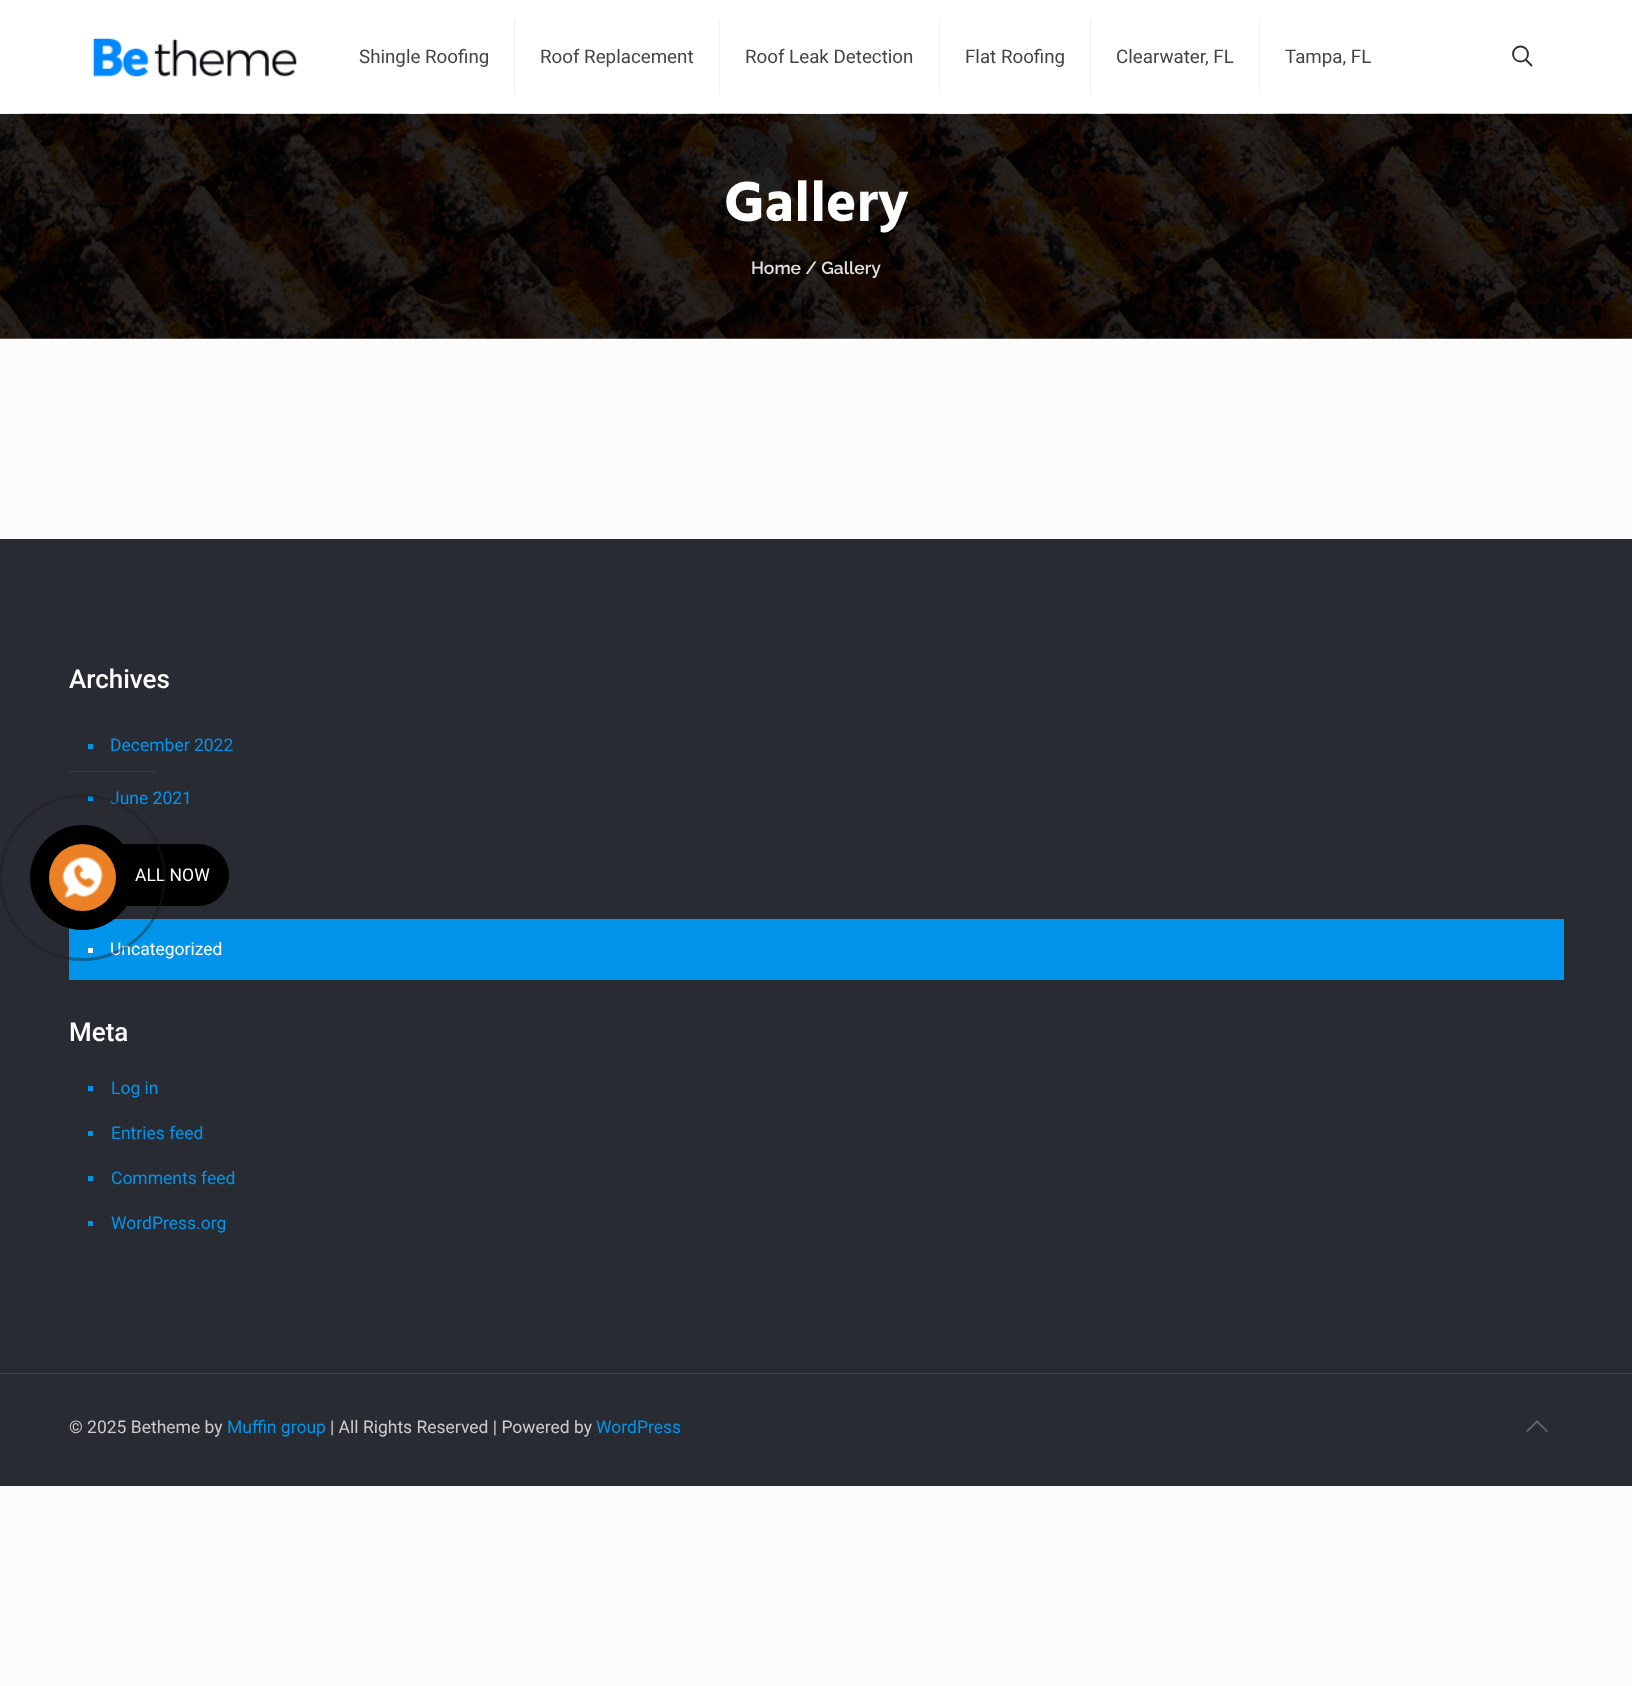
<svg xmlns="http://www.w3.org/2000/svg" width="1632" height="1686">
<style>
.a{font:18.75px Roboto;fill:#444}
.b{font:bold 57.5px Hind Madurai;fill:#fff}
.c{font:600 17.5px Raleway;fill:#e1e1e1}
.d{font:500 26px Roboto;fill:#fff}
.e{font:17.5px Roboto;fill:#0095eb}
.f{font:17.5px Roboto;fill:#fff}
.g{font:17.5px Roboto;fill:#ccc}
</style>
<rect width="100%" height="100%" fill="#fcfcfc"/>
<path fill="#fff" d="M0 0h1632v114H0z"/>
<image href="1.png" x="93" y="38" width="204" height="39"/>
<path fill="#f2f2f2" d="M514 19h1v75H514z"/>
<path fill="#f2f2f2" d="M719 19h1v75H719z"/>
<path fill="#f2f2f2" d="M939 19h1v75H939z"/>
<path fill="#f2f2f2" d="M1090 19h1v75H1090z"/>
<path fill="#f2f2f2" d="M1259 19h1v75H1259z"/>
<circle fill="none" stroke="#333" stroke-width="1.9" cx="1520.5" cy="54" r="7.5"/>
<path fill="none" stroke="#333" stroke-width="1.9" d="M1525.5 59.5l6.5 6.5"/>
<image href="2.png" x="0" y="113" width="1632" height="226"/>
<path fill="#292b33" d="M0 539h1632v947H0z"/>
<path fill="#0095eb" d="M88 744h5v5H88z"/>
<path fill="#393b41" d="M69 771h87v1H69z"/>
<path fill="#0095eb" d="M88 796h5v5H88z"/>
<path fill="#0095eb" d="M69 919h1495v61H69z"/>
<path fill="#fff" d="M88 948h5v5H88z"/>
<path fill="#0095eb" d="M88 1086h5v5H88z"/>
<path fill="#0095eb" d="M88 1131h5v5H88z"/>
<path fill="#0095eb" d="M88 1176h5v5H88z"/>
<path fill="#0095eb" d="M88 1221h5v5H88z"/>
<path fill="#3e4047" d="M0 1373h1632v1H0z"/>
<image href="3.png" x="1526" y="1420" width="22" height="12"/>
<rect fill="#000" x="49" y="844" width="180" height="62" rx="31"/>
<text class="a" x="359" y="63">Shingle Roofing</text>
<text class="a" x="540" y="63">Roof Replacement</text>
<text class="a" x="745" y="63">Roof Leak Detection</text>
<text class="a" x="965" y="63">Flat Roofing</text>
<text class="a" x="1116" y="63">Clearwater, FL</text>
<text class="a" x="1285" y="63">Tampa, FL</text>
<text class="b" x="724" y="221">Gallery</text>
<text class="c" x="751" y="274">Home / Gallery</text>
<text class="d" x="69" y="688">Archives</text>
<text class="e" x="110" y="751">December 2022</text>
<text class="e" x="110" y="804">June 2021</text>
<text class="f" x="110" y="955">Uncategorized</text>
<text class="d" x="69" y="1041">Meta</text>
<text class="e" x="111" y="1094">Log in</text>
<text class="e" x="111" y="1139">Entries feed</text>
<text class="e" x="111" y="1184">Comments feed</text>
<text class="e" x="111" y="1229">WordPress.org</text>
<text class="g" x="69" y="1433">© 2025 Betheme by</text>
<text class="e" x="227" y="1433">Muffin group</text>
<text class="g" x="330" y="1433">| All Rights Reserved | Powered by</text>
<text class="e" x="596" y="1433">WordPress</text>
<text class="f" x="135" y="881">ALL NOW</text>
<circle fill="none" stroke="#1e1e1e66" stroke-width="3" cx="82.5" cy="877.5" r="82"/>
<circle fill="#000" cx="82.5" cy="877.5" r="52.5"/>
<circle fill="#eb8025" cx="82.5" cy="877.5" r="33.5"/>
<image href="4.png" x="61" y="857" width="42" height="41"/>
</svg>
